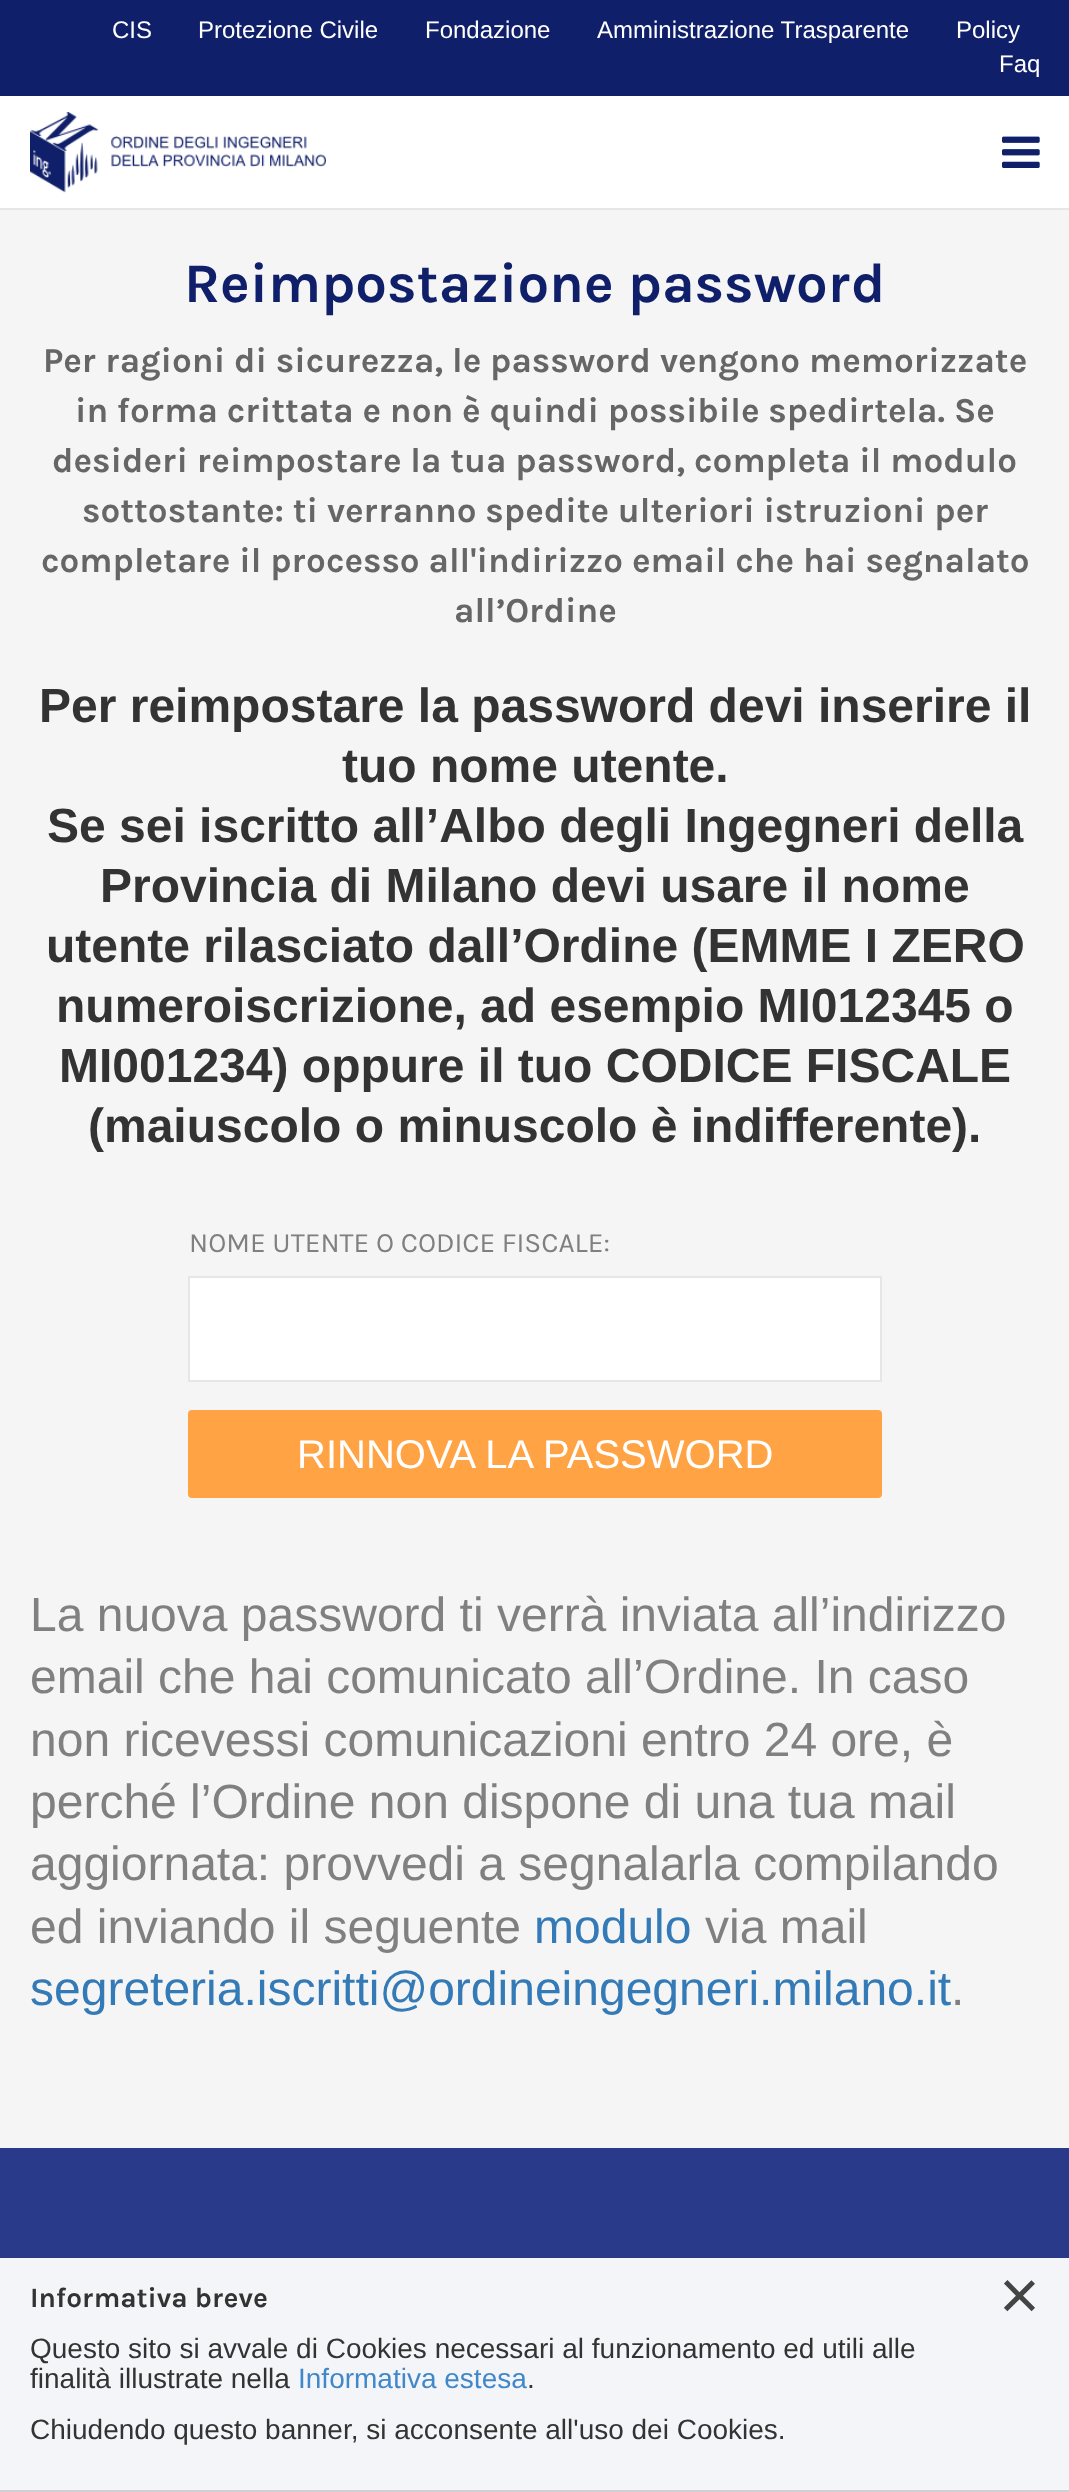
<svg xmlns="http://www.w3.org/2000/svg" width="1069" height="2492">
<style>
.a{font:24px Liberation Sans;fill:#fff}
.b{font:bold 56px Karla;fill:#101f69}
.c{font:bold 35px Karla;fill:#666}
.d{font:bold 48px Liberation Sans;fill:#333}
.e{font:28px Karla;fill:#808080}
.f{font:40px Liberation Sans;fill:#fff}
.g{font:48px Liberation Sans;fill:#808080}
.h{font:48px Liberation Sans;fill:#337ab7}
.i{font:bold 28px Karla;fill:#333}
.j{font:28px Liberation Sans;fill:#333}
.k{font:28px Liberation Sans;fill:#4088c9}
.l{font:70px Liberation Sans;fill:#444}
</style>
<rect width="100%" height="100%" fill="#f5f5f5"/>
<path fill="#fff" d="M0 96h1069v112H0z"/>
<path fill="#101f69" d="M0 0h1069v96H0z"/>
<path fill="#e6e6e6" d="M0 208h1069v2H0z"/>
<image href="1.png" x="30" y="112" width="296" height="81"/>
<image href="2.png" x="1002" y="136" width="38" height="32"/>
<path fill="#fff" stroke="#e6e6e6" stroke-width="2" d="M189 1277h692v104H189z"/>
<rect fill="#ffa344" x="188" y="1410" width="694" height="88" rx="4"/>
<path fill="#2a3a8a" d="M0 2148h1069v342H0z"/>
<path fill="#fffffff2" d="M0 2258h1069v232H0z"/>
<path fill="#d0d0d4" d="M0 2490h1069v2H0z"/>
<text class="a" x="112" y="38">CIS</text>
<text class="a" x="198" y="38">Protezione Civile</text>
<text class="a" x="425" y="38">Fondazione</text>
<text class="a" x="597" y="38">Amministrazione Trasparente</text>
<text class="a" x="956" y="38">Policy</text>
<text class="a" x="999" y="72">Faq</text>
<text class="b" x="184" y="302">Reimpostazione password</text>
<text class="c" x="43" y="372">Per ragioni di sicurezza, le password vengono memorizzate</text>
<text class="c" x="75" y="422">in forma crittata e non è quindi possibile spedirtela. Se</text>
<text class="c" x="52" y="472">desideri reimpostare la tua password, completa il modulo</text>
<text class="c" x="82" y="522">sottostante: ti verranno spedite ulteriori istruzioni per</text>
<text class="c" x="41" y="572">completare il processo all'indirizzo email che hai segnalato</text>
<text class="c" x="454" y="622">all’Ordine</text>
<text class="d" x="39" y="722">Per reimpostare la password devi inserire il</text>
<text class="d" x="342" y="782">tuo nome utente.</text>
<text class="d" x="47" y="842">Se sei iscritto all’Albo degli Ingegneri della</text>
<text class="d" x="100" y="902">Provincia di Milano devi usare il nome</text>
<text class="d" x="46" y="962">utente rilasciato dall’Ordine (EMME I ZERO</text>
<text class="d" x="56" y="1022">numeroiscrizione, ad esempio MI012345 o</text>
<text class="d" x="59" y="1082">MI001234) oppure il tuo CODICE FISCALE</text>
<text class="d" x="88" y="1142">(maiuscolo o minuscolo è indifferente).</text>
<text class="e" x="189" y="1252">NOME UTENTE O CODICE FISCALE:</text>
<text class="f" x="297" y="1468">RINNOVA LA PASSWORD</text>
<text class="g" x="30" y="1631">La nuova password ti verrà inviata all’indirizzo</text>
<text class="g" x="30" y="1693">email che hai comunicato all’Ordine. In caso</text>
<text class="g" x="30" y="1756">non ricevessi comunicazioni entro 24 ore, è</text>
<text class="g" x="30" y="1818">perché l’Ordine non dispone di una tua mail</text>
<text class="g" x="30" y="1880">aggiornata: provvedi a segnalarla compilando</text>
<text class="g" x="30" y="1943">ed inviando il seguente</text>
<text class="h" x="534" y="1943">modulo</text>
<text class="g" x="705" y="1943">via mail</text>
<text class="h" x="30" y="2005">segreteria.iscritti@ordineingegneri.milano.it</text>
<text class="g" x="951" y="2005">.</text>
<text class="i" x="30" y="2307">Informativa breve</text>
<text class="j" x="30" y="2358">Questo sito si avvale di Cookies necessari al funzionamento ed utili alle</text>
<text class="j" x="30" y="2388">finalità illustrate nella</text>
<text class="k" x="298" y="2388">Informativa estesa</text>
<text class="j" x="527" y="2388">.</text>
<text class="j" x="30" y="2439">Chiudendo questo banner, si acconsente all'uso dei Cookies.</text>
<text class="l" x="999" y="2319">×</text>
</svg>
